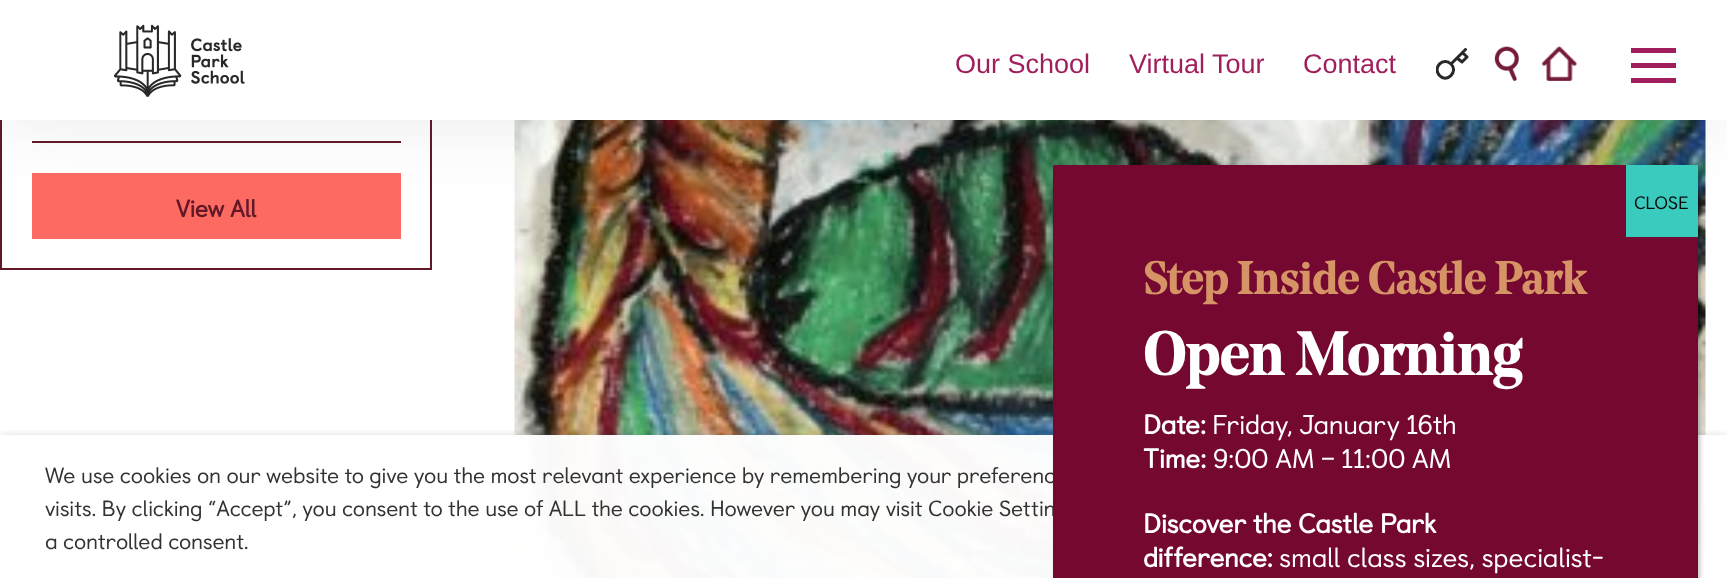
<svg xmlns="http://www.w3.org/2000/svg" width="1727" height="578">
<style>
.a{font:27px Liberation Sans;fill:#a11e5c}
.b{font:bold 24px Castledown;fill:#621827}
.c{font:22px Castledown;fill:#333}
.d{font:18px Castledown;fill:#0a0a0a}
.e{font:27px Castledown;fill:#fff}
.f{font:bold 27px Castledown;fill:#fff}
.g{font:bold 60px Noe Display;fill:#fff}
.h{font:bold 45px Noe Display;fill:#d69366}
</style>
<defs>
<clipPath id="clip1"><path d="M1436 48h33v33H1436z"/></clipPath>
<clipPath id="clip2"><path d="M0 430h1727v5H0z"/></clipPath>
</defs>
<rect width="100%" height="100%" fill="#fff"/>
<path fill="none" stroke="#621827" stroke-width="2" d="M1 -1h430v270H1z"/>
<path fill="#621827" d="M32 141h369v2H32z"/>
<path fill="#fd6a62" d="M32 173h369v66H32z"/>
<image href="4.png" x="514" y="120" width="1192" height="458"/>
<path fill="#4647521f" filter="blur(37.5px)" d="M0 0h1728v120H0z"/>
<path fill="#fff" d="M0 0h1727v120H0z"/>
<image href="1.png" x="114" y="24" width="131" height="73"/>
<g clip-path="url(#clip1)">
<path fill="none" stroke="#282828" stroke-width="3" stroke-linecap="round" stroke-linejoin="round" d="M1465.5 49.5l-3 3m-11.5 11.5l6-6m0 0l5 4l5-5l-4.5-4.5m-5.5 5.5l5.5-5.5m-11.5 11.5c8 7.5-4.5 19.5-11.5 11.5c-7.5-8 4-19 11.5-11.5z"/>
</g>
<image href="2.png" x="1494" y="46" width="25" height="35"/>
<image href="3.png" x="1541" y="46" width="36" height="35"/>
<path fill="#a11e5c" d="M1631 63h45v5H1631z"/>
<path fill="#a11e5c" d="M1631 48h45v5H1631z"/>
<path fill="#a11e5c" d="M1631 78h45v5H1631z"/>
<g clip-path="url(#clip2)">
<path fill="#00000080" filter="blur(7.5px)" d="M0 443h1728v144H0z"/>
</g>
<path fill="#fffffff7" d="M514 435h1192v143H514z"/>
<rect fill="#0202023b" filter="blur(2px)" x="1055" y="167" width="645" height="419" rx="1.5"/>
<text class="a" x="955" y="73">Our School</text>
<text class="a" x="1129" y="73">Virtual Tour</text>
<text class="a" x="1303" y="73">Contact</text>
<text class="b" x="176" y="217">View All</text>
<text class="c" x="45" y="483">We use cookies on our website to give you the most relevant experience by remembering your preferenc</text>
<text class="c" x="45" y="516">visits. By clicking “Accept”, you consent to the use of ALL the cookies. However you may visit Cookie Settin</text>
<rect fill="#750830" x="1053" y="165" width="645" height="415" rx="1.5"/>
<path fill="#3acbbf" d="M1626 165h72v72H1626z"/>
<text class="d" x="1634" y="209">CLOSE</text>
<text class="e" x="1279" y="567">small class sizes, specialist-</text>
<text class="f" x="1143" y="567">difference:</text>
<text class="f" x="1143" y="533">Discover the Castle Park</text>
<text class="e" x="1213" y="468">9:00 AM – 11:00 AM</text>
<text class="f" x="1143" y="468">Time:</text>
<text class="e" x="1212" y="434">Friday, January 16th</text>
<text class="f" x="1143" y="434">Date:</text>
<text class="g" x="1143" y="375">Open Morning</text>
<text class="h" x="1143" y="294">Step Inside Castle Park</text>
<text class="c" x="45" y="549">a controlled consent.</text>
</svg>
